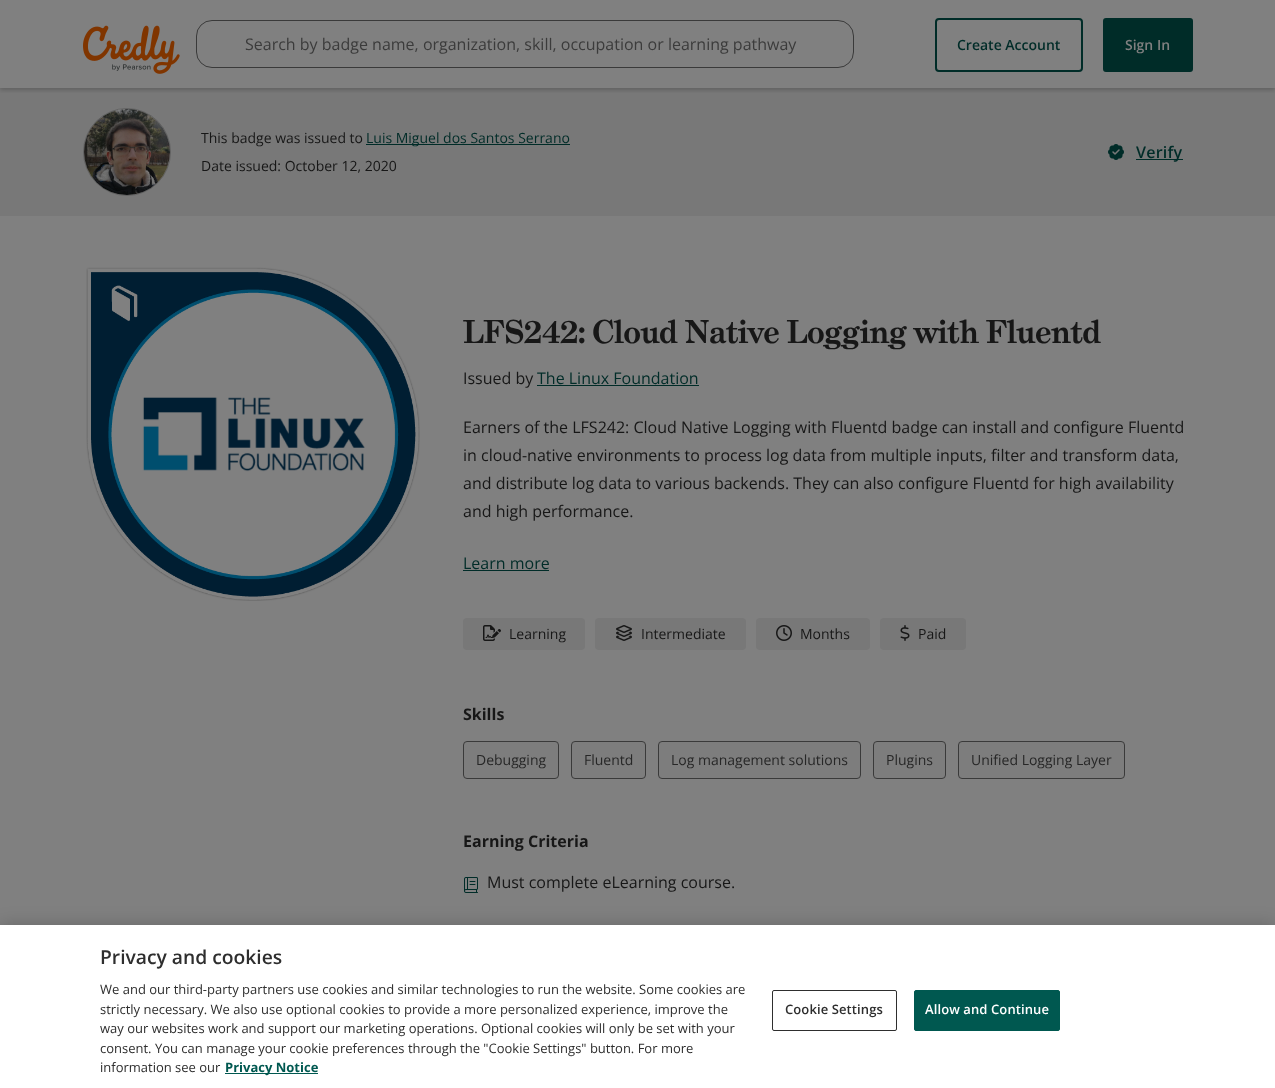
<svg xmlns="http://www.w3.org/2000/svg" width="1275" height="1088">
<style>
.a{font:16px Open Sans;fill:#3b3b3b}
.b{font:600 14px Open Sans;fill:#002c28}
.c{font:600 14px Open Sans;fill:#808080}
.d{font:14px Open Sans;fill:#171717}
.e{font:14px Open Sans;fill:#002c28}
.f{font:600 16px Open Sans;letter-spacing:0.25px;fill:#002c28}
.g{font:bold 32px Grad;fill:#171717}
.h{font:16px Open Sans;fill:#171717}
.i{font:16px Open Sans;fill:#002c28}
.j{font:bold 16px Open Sans;fill:#171717}
.k{font:14px Open Sans;fill:#272727}
.l{font:600 19.25px Open Sans;fill:#2e2e2e}
.m{font:13px Open Sans;fill:#2e2e2e}
.n{font:bold 13px Open Sans;fill:#005850}
.o{font:600 13px Open Sans;letter-spacing:0.1px;fill:#2e2e2e}
.p{font:600 13px Open Sans;letter-spacing:0.1px;fill:#fefefe}
</style>
<defs>
<clipPath id="clip1"><path d="M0 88h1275v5H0z"/></clipPath>
</defs>
<rect width="100%" height="100%" fill="#808080"/>
<path fill="#787878" d="M0 88h1275v128H0z"/>
<g clip-path="url(#clip1)">
<path fill="#00000033" filter="blur(2px)" d="M0 2h1275v88H0z"/>
</g>
<image href="1.png" x="83" y="25" width="97" height="49"/>
<rect fill="none" stroke="#3a3a3a" x="196.5" y="20.5" width="657" height="47" rx="15.5"/>
<rect fill="none" stroke="#002c28" stroke-width="2" x="936" y="19" width="146" height="52" rx="3"/>
<rect fill="#002c28" stroke="#002c28" stroke-width="2" x="1104" y="19" width="88" height="52" rx="2"/>
<circle fill="#808080" stroke="#616161" cx="127" cy="152" r="43.5"/>
<image href="2.png" x="84" y="109" width="86" height="86"/>
<path fill="#002c28" d="M366 144h204v1H366z"/>
<image href="3.png" x="1108" y="144" width="16" height="16"/>
<path fill="#002c28" d="M1136 159h47v1H1136z"/>
<image href="4.png" x="86" y="267" width="334" height="334"/>
<path fill="#002c28" d="M537 385h162v1H537z"/>
<path fill="#002c28" d="M463 570h86v1H463z"/>
<rect fill="#787878" x="463" y="618" width="122" height="32" rx="4"/>
<image href="5.png" x="483" y="625" width="18" height="16"/>
<rect fill="#787878" x="595" y="618" width="151" height="32" rx="4"/>
<image href="6.png" x="616" y="625" width="16" height="16"/>
<rect fill="#787878" x="756" y="618" width="114" height="32" rx="4"/>
<image href="7.png" x="776" y="625" width="16" height="16"/>
<rect fill="#787878" x="880" y="618" width="86" height="32" rx="4"/>
<image href="8.png" x="900" y="625" width="10" height="16"/>
<rect fill="#7d7d7d" stroke="#3a3a3a" x="463.5" y="741.5" width="95" height="37" rx="3.5"/>
<rect fill="#7d7d7d" stroke="#3a3a3a" x="571.5" y="741.5" width="74" height="37" rx="3.5"/>
<rect fill="#7d7d7d" stroke="#3a3a3a" x="658.5" y="741.5" width="202" height="37" rx="3.5"/>
<rect fill="#7d7d7d" stroke="#3a3a3a" x="873.5" y="741.5" width="72" height="37" rx="3.5"/>
<rect fill="#7d7d7d" stroke="#3a3a3a" x="958.5" y="741.5" width="166" height="37" rx="3.5"/>
<image href="9.png" x="464" y="877" width="14" height="16"/>
<path fill="#00000033" filter="blur(9px)" d="M0 925h1275v163H0z"/>
<path fill="#fff" d="M0 925h1275v163H0z"/>
<path fill="#005850" d="M225 1073h93v1H225z"/>
<rect fill="none" stroke="#2e2e2e" x="772.5" y="990.5" width="124" height="40" rx="1.5"/>
<rect fill="#005850" stroke="#005850" x="914.5" y="990.5" width="145" height="40" rx="1.5"/>
<text class="a" x="245" y="50">Search by badge name, organization, skill, occupation or learning pathway</text>
<text class="b" x="957" y="50">Create Account</text>
<text class="c" x="1125" y="50">Sign In</text>
<text class="d" x="201" y="143">This badge was issued to</text>
<text class="e" x="366" y="143">Luis Miguel dos Santos Serrano</text>
<text class="d" x="201" y="171">Date issued: October 12, 2020</text>
<text class="f" x="1136" y="158">Verify</text>
<text class="g" x="463" y="343">LFS242: Cloud Native Logging with Fluentd</text>
<text class="h" x="463" y="384">Issued by</text>
<text class="i" x="537" y="384">The Linux Foundation</text>
<text class="h" x="463" y="433">Earners of the LFS242: Cloud Native Logging with Fluentd badge can install and configure Fluentd</text>
<text class="h" x="463" y="461">in cloud-native environments to process log data from multiple inputs, filter and transform data,</text>
<text class="h" x="463" y="489">and distribute log data to various backends. They can also configure Fluentd for high availability</text>
<text class="h" x="463" y="517">and high performance.</text>
<text class="i" x="463" y="569">Learn more</text>
<text class="d" x="509" y="639">Learning</text>
<text class="d" x="641" y="639">Intermediate</text>
<text class="d" x="800" y="639">Months</text>
<text class="d" x="918" y="639">Paid</text>
<text class="j" x="463" y="720">Skills</text>
<text class="k" x="476" y="765">Debugging</text>
<text class="k" x="584" y="765">Fluentd</text>
<text class="k" x="671" y="765">Log management solutions</text>
<text class="k" x="886" y="765">Plugins</text>
<text class="k" x="971" y="765">Unified Logging Layer</text>
<text class="j" x="463" y="847">Earning Criteria</text>
<text class="h" x="487" y="888">Must complete eLearning course.</text>
<text class="l" x="100" y="964">Privacy and cookies</text>
<text class="m" x="100" y="994">We and our third-party partners use cookies and similar technologies to run the website. Some cookies are</text>
<text class="m" x="100" y="1014">strictly necessary. We also use optional cookies to provide a more personalized experience, improve the</text>
<text class="m" x="100" y="1033">way our websites work and support our marketing operations. Optional cookies will only be set with your</text>
<text class="m" x="100" y="1053">consent. You can manage your cookie preferences through the "Cookie Settings" button. For more</text>
<text class="m" x="100" y="1072">information see our</text>
<text class="n" x="225" y="1072">Privacy Notice</text>
<text class="o" x="785" y="1014">Cookie Settings</text>
<text class="p" x="925" y="1014">Allow and Continue</text>
</svg>
